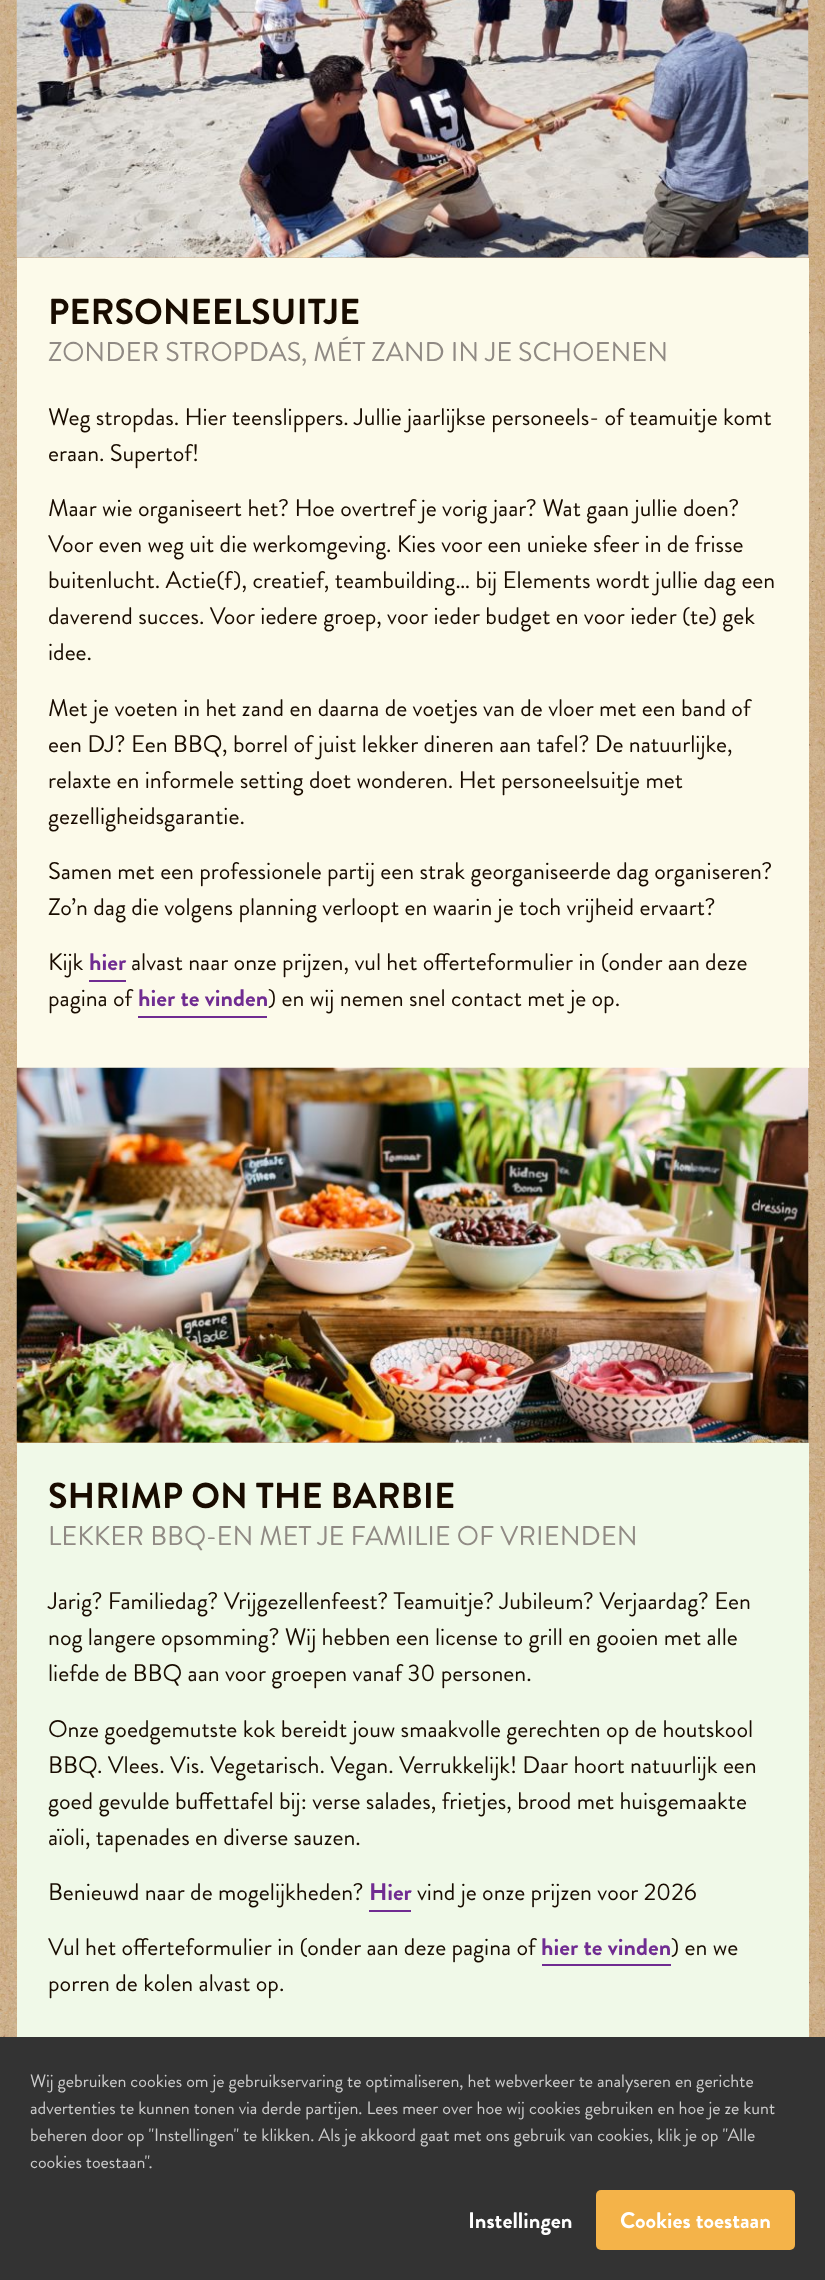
<svg xmlns="http://www.w3.org/2000/svg" width="825" height="2280">
<style>
.a{font:bold 36px Brandon Grotesque;fill:#190c00}
.b{font:27px Brandon Grotesque;fill:#908a84}
.c{font:24px Brandon Grotesque;fill:#190c00}
.d{font:bold 24px Brandon Grotesque;fill:#702c91}
.e{font:18px Brandon Grotesque;fill:#ccc}
.f{font:bold 22.5px Brandon Grotesque;fill:#fff}
</style>
<rect width="100%" height="100%" fill="#fff"/>
<image href="1.png" x="0" y="0" width="825" height="2037"/>
<image href="2.png" x="16" y="0" width="793" height="258"/>
<path fill="#fcfaea" d="M17 258h792v810H17z"/>
<path fill="#702c91" d="M89 980h37v2H89z"/>
<path fill="#702c91" d="M138 1016h129v2H138z"/>
<image href="3.png" x="16" y="1067" width="793" height="376"/>
<path fill="#f0f9e8" d="M17 1443h792v594H17z"/>
<path fill="#702c91" d="M369 1910h42v2H369z"/>
<path fill="#702c91" d="M542 1964h129v2H542z"/>
<path fill="#333" d="M0 2037h825v243H0z"/>
<rect fill="#f4b349" x="596" y="2190" width="199" height="60" rx="5"/>
<text class="a" x="48" y="324">PERSONEELSUITJE</text>
<text class="b" x="48" y="361">ZONDER STROPDAS, MÉT ZAND IN JE SCHOENEN</text>
<text class="c" x="48" y="425">Weg stropdas. Hier teenslippers. Jullie jaarlijkse personeels- of teamuitje komt</text>
<text class="c" x="48" y="461">eraan. Supertof!</text>
<text class="c" x="48" y="516">Maar wie organiseert het? Hoe overtref je vorig jaar? Wat gaan jullie doen?</text>
<text class="c" x="48" y="552">Voor even weg uit die werkomgeving. Kies voor een unieke sfeer in de frisse</text>
<text class="c" x="48" y="588">buitenlucht. Actie(f), creatief, teambuilding… bij Elements wordt jullie dag een</text>
<text class="c" x="48" y="624">daverend succes. Voor iedere groep, voor ieder budget en voor ieder (te) gek</text>
<text class="c" x="48" y="660">idee.</text>
<text class="c" x="48" y="716">Met je voeten in het zand en daarna de voetjes van de vloer met een band of</text>
<text class="c" x="48" y="752">een DJ? Een BBQ, borrel of juist lekker dineren aan tafel? De natuurlijke,</text>
<text class="c" x="48" y="788">relaxte en informele setting doet wonderen. Het personeelsuitje met</text>
<text class="c" x="48" y="824">gezelligheidsgarantie.</text>
<text class="c" x="48" y="879">Samen met een professionele partij een strak georganiseerde dag organiseren?</text>
<text class="c" x="48" y="915">Zo’n dag die volgens planning verloopt en waarin je toch vrijheid ervaart?</text>
<text class="c" x="48" y="970">Kijk</text>
<text class="d" x="89" y="970">hier</text>
<text class="c" x="131" y="970">alvast naar onze prijzen, vul het offerteformulier in (onder aan deze</text>
<text class="c" x="48" y="1006">pagina of</text>
<text class="d" x="138" y="1006">hier te vinden</text>
<text class="c" x="268" y="1006">) en wij nemen snel contact met je op.</text>
<text class="a" x="48" y="1508">SHRIMP ON THE BARBIE</text>
<text class="b" x="48" y="1545">LEKKER BBQ-EN MET JE FAMILIE OF VRIENDEN</text>
<text class="c" x="48" y="1609">Jarig? Familiedag? Vrijgezellenfeest? Teamuitje? Jubileum? Verjaardag? Een</text>
<text class="c" x="48" y="1645">nog langere opsomming? Wij hebben een license to grill en gooien met alle</text>
<text class="c" x="48" y="1681">liefde de BBQ aan voor groepen vanaf 30 personen.</text>
<text class="c" x="48" y="1737">Onze goedgemutste kok bereidt jouw smaakvolle gerechten op de houtskool</text>
<text class="c" x="48" y="1773">BBQ. Vlees. Vis. Vegetarisch. Vegan. Verrukkelijk! Daar hoort natuurlijk een</text>
<text class="c" x="48" y="1809">goed gevulde buffettafel bij: verse salades, frietjes, brood met huisgemaakte</text>
<text class="c" x="48" y="1845">aïoli, tapenades en diverse sauzen.</text>
<text class="c" x="48" y="1900">Benieuwd naar de mogelijkheden?</text>
<text class="d" x="369" y="1900">Hier</text>
<text class="c" x="417" y="1900">vind je onze prijzen voor 2026</text>
<text class="c" x="48" y="1955">Vul het offerteformulier in (onder aan deze pagina of</text>
<text class="d" x="541" y="1955">hier te vinden</text>
<text class="c" x="671" y="1955">) en we</text>
<text class="c" x="48" y="1991">porren de kolen alvast op.</text>
<text class="e" x="30" y="2087">Wij gebruiken cookies om je gebruikservaring te optimaliseren, het webverkeer te analyseren en gerichte</text>
<text class="e" x="30" y="2114">advertenties te kunnen tonen via derde partijen. Lees meer over hoe wij cookies gebruiken en hoe je ze kunt</text>
<text class="e" x="30" y="2141">beheren door op "Instellingen" te klikken. Als je akkoord gaat met ons gebruik van cookies, klik je op "Alle</text>
<text class="e" x="30" y="2168">cookies toestaan".</text>
<text class="f" x="468" y="2228">Instellingen</text>
<text class="f" x="620" y="2228">Cookies toestaan</text>
</svg>
